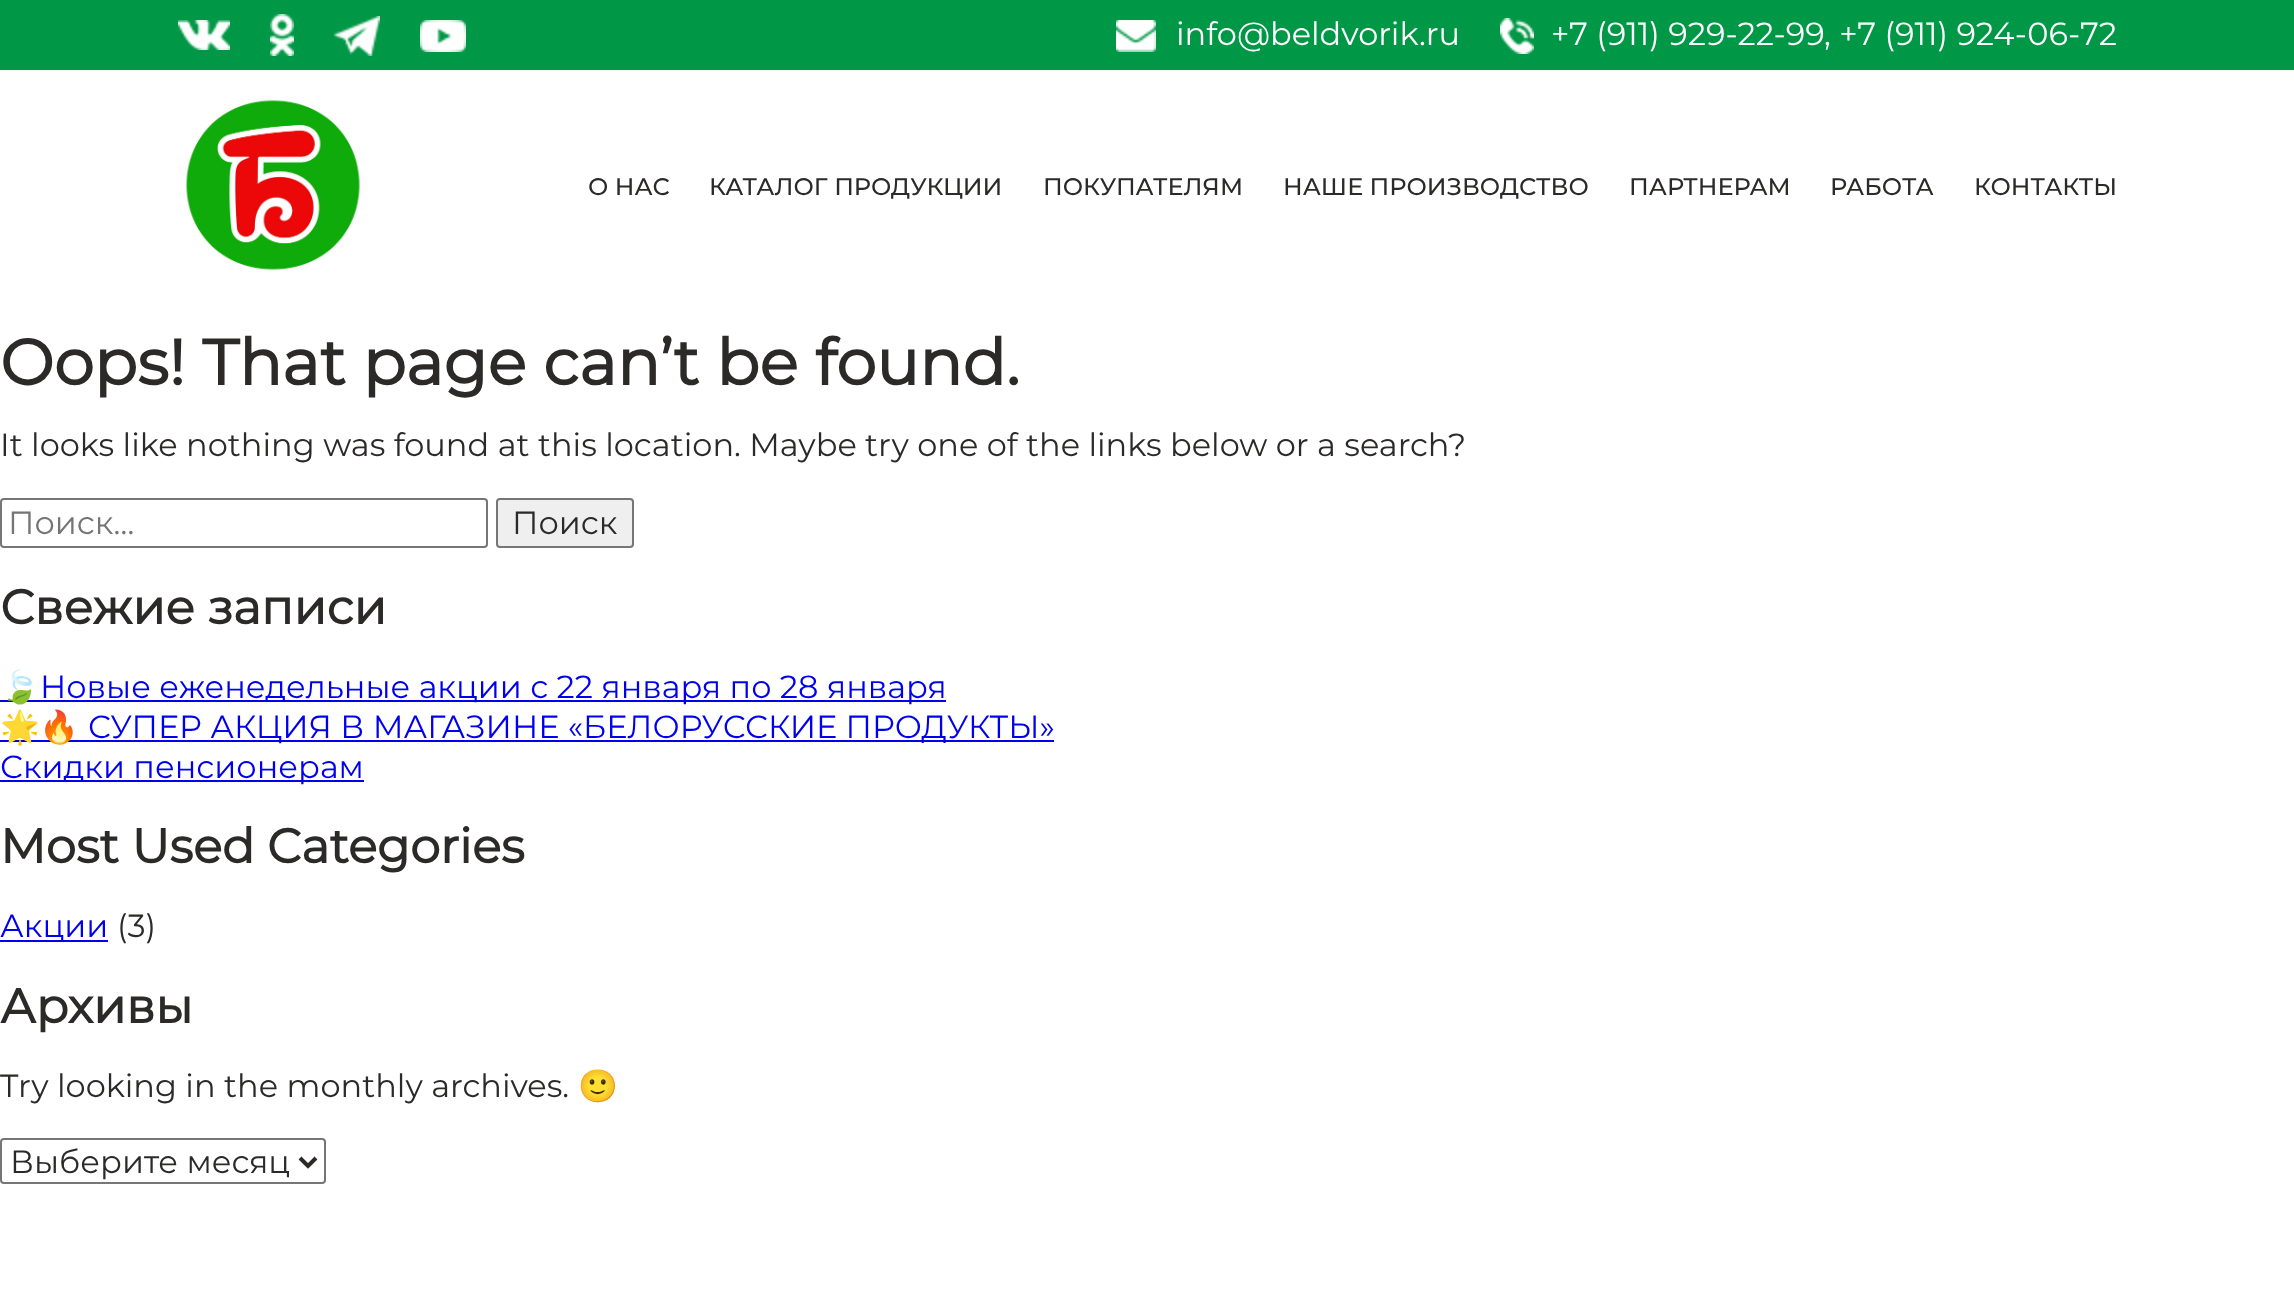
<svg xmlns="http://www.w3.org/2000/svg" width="2294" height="1296">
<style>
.a{font:32px Montserrat;fill:#fff}
.b{font:500 24px Montserrat;fill:#2b2a29}
.c{font:bold 64px Montserrat;fill:#2b2a29}
.d{font:32px Montserrat;fill:#2b2a29}
.e{font:32px Montserrat;fill:#757575}
.f{font:bold 48px Montserrat;fill:#2b2a29}
.g{font:32px Noto Color Emoji;fill:#00e}
.h{font:32px Montserrat;fill:#00e}
.i{font:32px Noto Color Emoji;fill:#2b2a29}
</style>
<rect width="100%" height="100%" fill="#fff"/>
<path fill="#009846" d="M0 0h2294v70H0z"/>
<image href="1.png" x="178" y="20" width="52" height="30"/>
<image href="2.png" x="270" y="14" width="24" height="42"/>
<image href="3.png" x="334" y="16" width="46" height="40"/>
<image href="4.png" x="420" y="20" width="46" height="32"/>
<image href="5.png" x="1116" y="20" width="40" height="32"/>
<image href="6.png" x="1500" y="18" width="34" height="36"/>
<image href="7.png" x="186" y="100" width="174" height="170"/>
<rect fill="none" stroke="#767676" stroke-width="2" x="1" y="499" width="486" height="48" rx="3"/>
<rect fill="#efefef" stroke="#767676" stroke-width="2" x="497" y="499" width="136" height="48" rx="3"/>
<path fill="#00e" d="M0 700h946v2H0z"/>
<path fill="#00e" d="M0 740h1054v2H0z"/>
<path fill="#00e" d="M0 780h364v2H0z"/>
<path fill="#00e" d="M0 940h108v2H0z"/>
<rect fill="none" stroke="#767676" stroke-width="2" x="1" y="1139" width="324" height="44" rx="3"/>
<path fill="none" stroke="#2b2a29" stroke-width="4" d="M300 1158l8 8l8-8"/>
<text class="a" x="1176" y="45">info@beldvorik.ru</text>
<text class="a" x="1551" y="45">+7 (911) 929-22-99</text>
<text class="a" x="1824" y="45">, +7 (911) 924-06-72</text>
<text class="b" x="588" y="195">О НАС</text>
<text class="b" x="709" y="195">КАТАЛОГ ПРОДУКЦИИ</text>
<text class="b" x="1043" y="195">ПОКУПАТЕЛЯМ</text>
<text class="b" x="1283" y="195">НАШЕ ПРОИЗВОДСТВО</text>
<text class="b" x="1629" y="195">ПАРТНЕРАМ</text>
<text class="b" x="1830" y="195">РАБОТА</text>
<text class="b" x="1974" y="195">КОНТАКТЫ</text>
<text class="c" x="0" y="385">Oops! That page can’t be found.</text>
<text class="d" x="0" y="456">It looks like nothing was found at this location. Maybe try one of the links below or a search?</text>
<text class="e" x="8" y="534">Поиск…</text>
<text class="d" x="512" y="534">Поиск</text>
<text class="f" x="0" y="624">Свежие записи</text>
<text class="g" x="0" y="698">🍃</text>
<text class="h" x="40" y="698">Новые еженедельные акции с 22 января по 28 января</text>
<text class="g" x="0" y="738">🌟🔥</text>
<text class="h" x="88" y="738">СУПЕР АКЦИЯ В МАГАЗИНЕ «БЕЛОРУССКИЕ ПРОДУКТЫ»</text>
<text class="h" x="0" y="778">Скидки пенсионерам</text>
<text class="f" x="0" y="863">Most Used Categories</text>
<text class="h" x="0" y="937">Акции</text>
<text class="d" x="117" y="937">(3)</text>
<text class="f" x="0" y="1023">Архивы</text>
<text class="d" x="0" y="1097">Try looking in the monthly archives.</text>
<text class="i" x="578" y="1097">🙂</text>
<text class="d" x="10" y="1173">Выберите месяц</text>
</svg>
